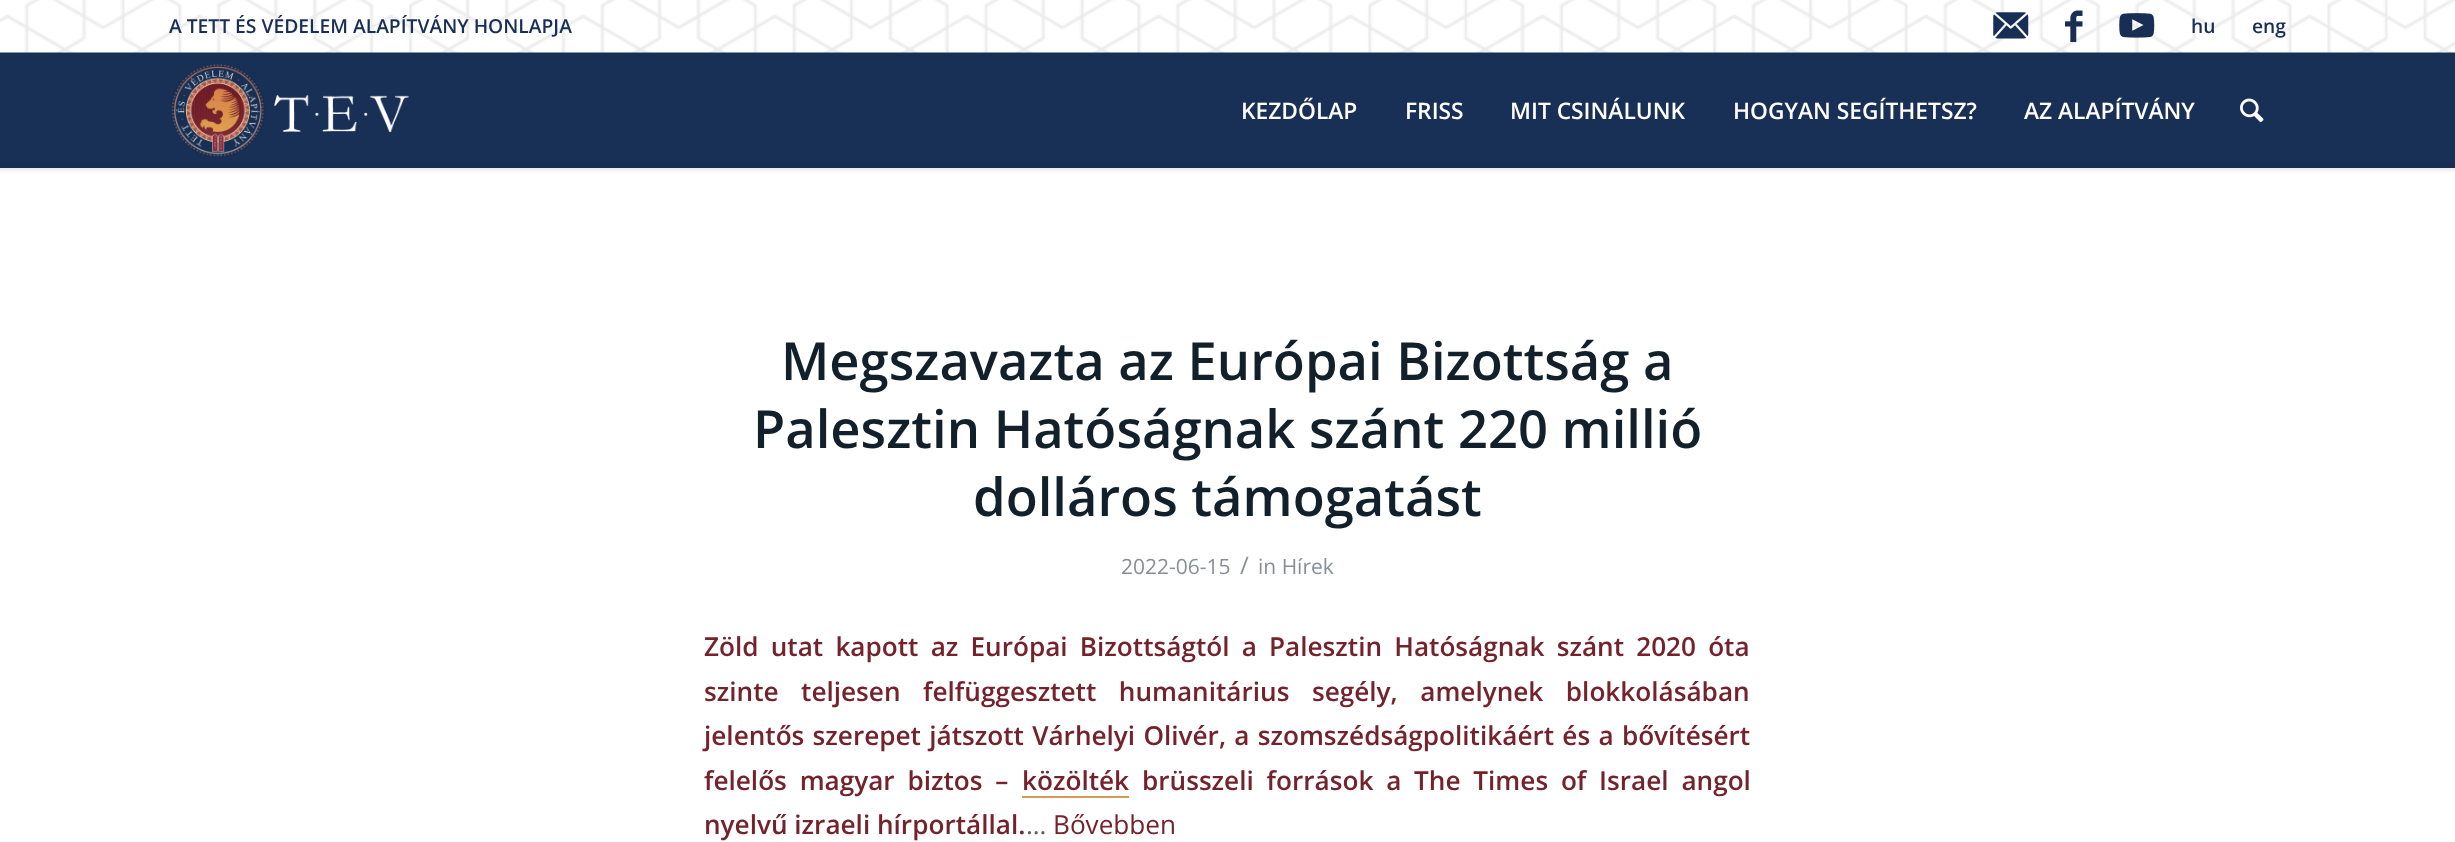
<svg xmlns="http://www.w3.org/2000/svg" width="2455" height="842">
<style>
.a{font:600 19.25px Open Sans;fill:#182e55}
.b{font:600 22.75px Open Sans;fill:#fff}
.c{font:600 52.5px Open Sans;fill:#11202a}
.d{font:21px Open Sans;fill:#889095}
.e{font:24px Open Sans;fill:#889095}
.f{font:600 26.15px Open Sans;fill:#74222c}
.g{font:26.15px Open Sans;fill:#55606e}
.h{font:26.15px Open Sans;fill:#74222c}
</style>
<rect width="100%" height="100%" fill="#fff"/>
<path fill="#0000001a" filter="blur(2px)" d="M-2 -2h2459v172H-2z"/>
<path fill="#182f56" d="M0 52h2455v111H0z"/>
<image href="1.png" x="0" y="0" width="2455" height="53"/>
<image href="2.png" x="1993" y="12" width="36" height="27"/>
<image href="3.png" x="2065" y="10" width="18" height="32"/>
<image href="4.png" x="2119" y="13" width="36" height="25"/>
<path fill="#172d52" d="M0 163h2455v5H0z"/>
<image href="5.png" x="171" y="64" width="239" height="93"/>
<image href="6.png" x="2240" y="98" width="24" height="25"/>
<path fill="#d39a59" d="M1022 796h107v2H1022z"/>
<text class="a" x="169" y="33">A TETT ÉS VÉDELEM ALAPÍTVÁNY HONLAPJA</text>
<text class="a" x="2191" y="33">hu</text>
<text class="a" x="2252" y="33">eng</text>
<text class="b" x="1241" y="119">KEZDŐLAP</text>
<text class="b" x="1405" y="119">FRISS</text>
<text class="b" x="1510" y="119">MIT CSINÁLUNK</text>
<text class="b" x="1733" y="119">HOGYAN SEGÍTHETSZ?</text>
<text class="b" x="2024" y="119">AZ ALAPÍTVÁNY</text>
<text class="c" x="781" y="380">Megszavazta az Európai Bizottság a</text>
<text class="c" x="753" y="448">Palesztin Hatóságnak szánt 220 millió</text>
<text class="c" x="973" y="516">dolláros támogatást</text>
<text class="d" x="1121" y="574">2022-06-15</text>
<text class="e" x="1240" y="574">/</text>
<text class="d" x="1258" y="574">in Hírek</text>
<text class="f" x="704" y="656" word-spacing="5.4">Zöld utat kapott az Európai Bizottságtól a Palesztin Hatóságnak szánt 2020 óta</text>
<text class="f" x="704" y="701" word-spacing="15.75">szinte teljesen felfüggesztett humanitárius segély, amelynek blokkolásában</text>
<text class="f" x="704" y="745" word-spacing="1.5">jelentős szerepet játszott Várhelyi Olivér, a szomszédságpolitikáért és a bővítésért</text>
<text class="f" x="704" y="790" word-spacing="6">felelős magyar biztos –</text>
<text class="f" x="1022" y="790">közölték</text>
<text class="f" x="1142" y="790" word-spacing="6">brüsszeli források a The Times of Israel angol</text>
<text class="f" x="704" y="834">nyelvű izraeli hírportállal.</text>
<text class="g" x="1026" y="834">…</text>
<text class="h" x="1053" y="834">Bővebben</text>
</svg>
